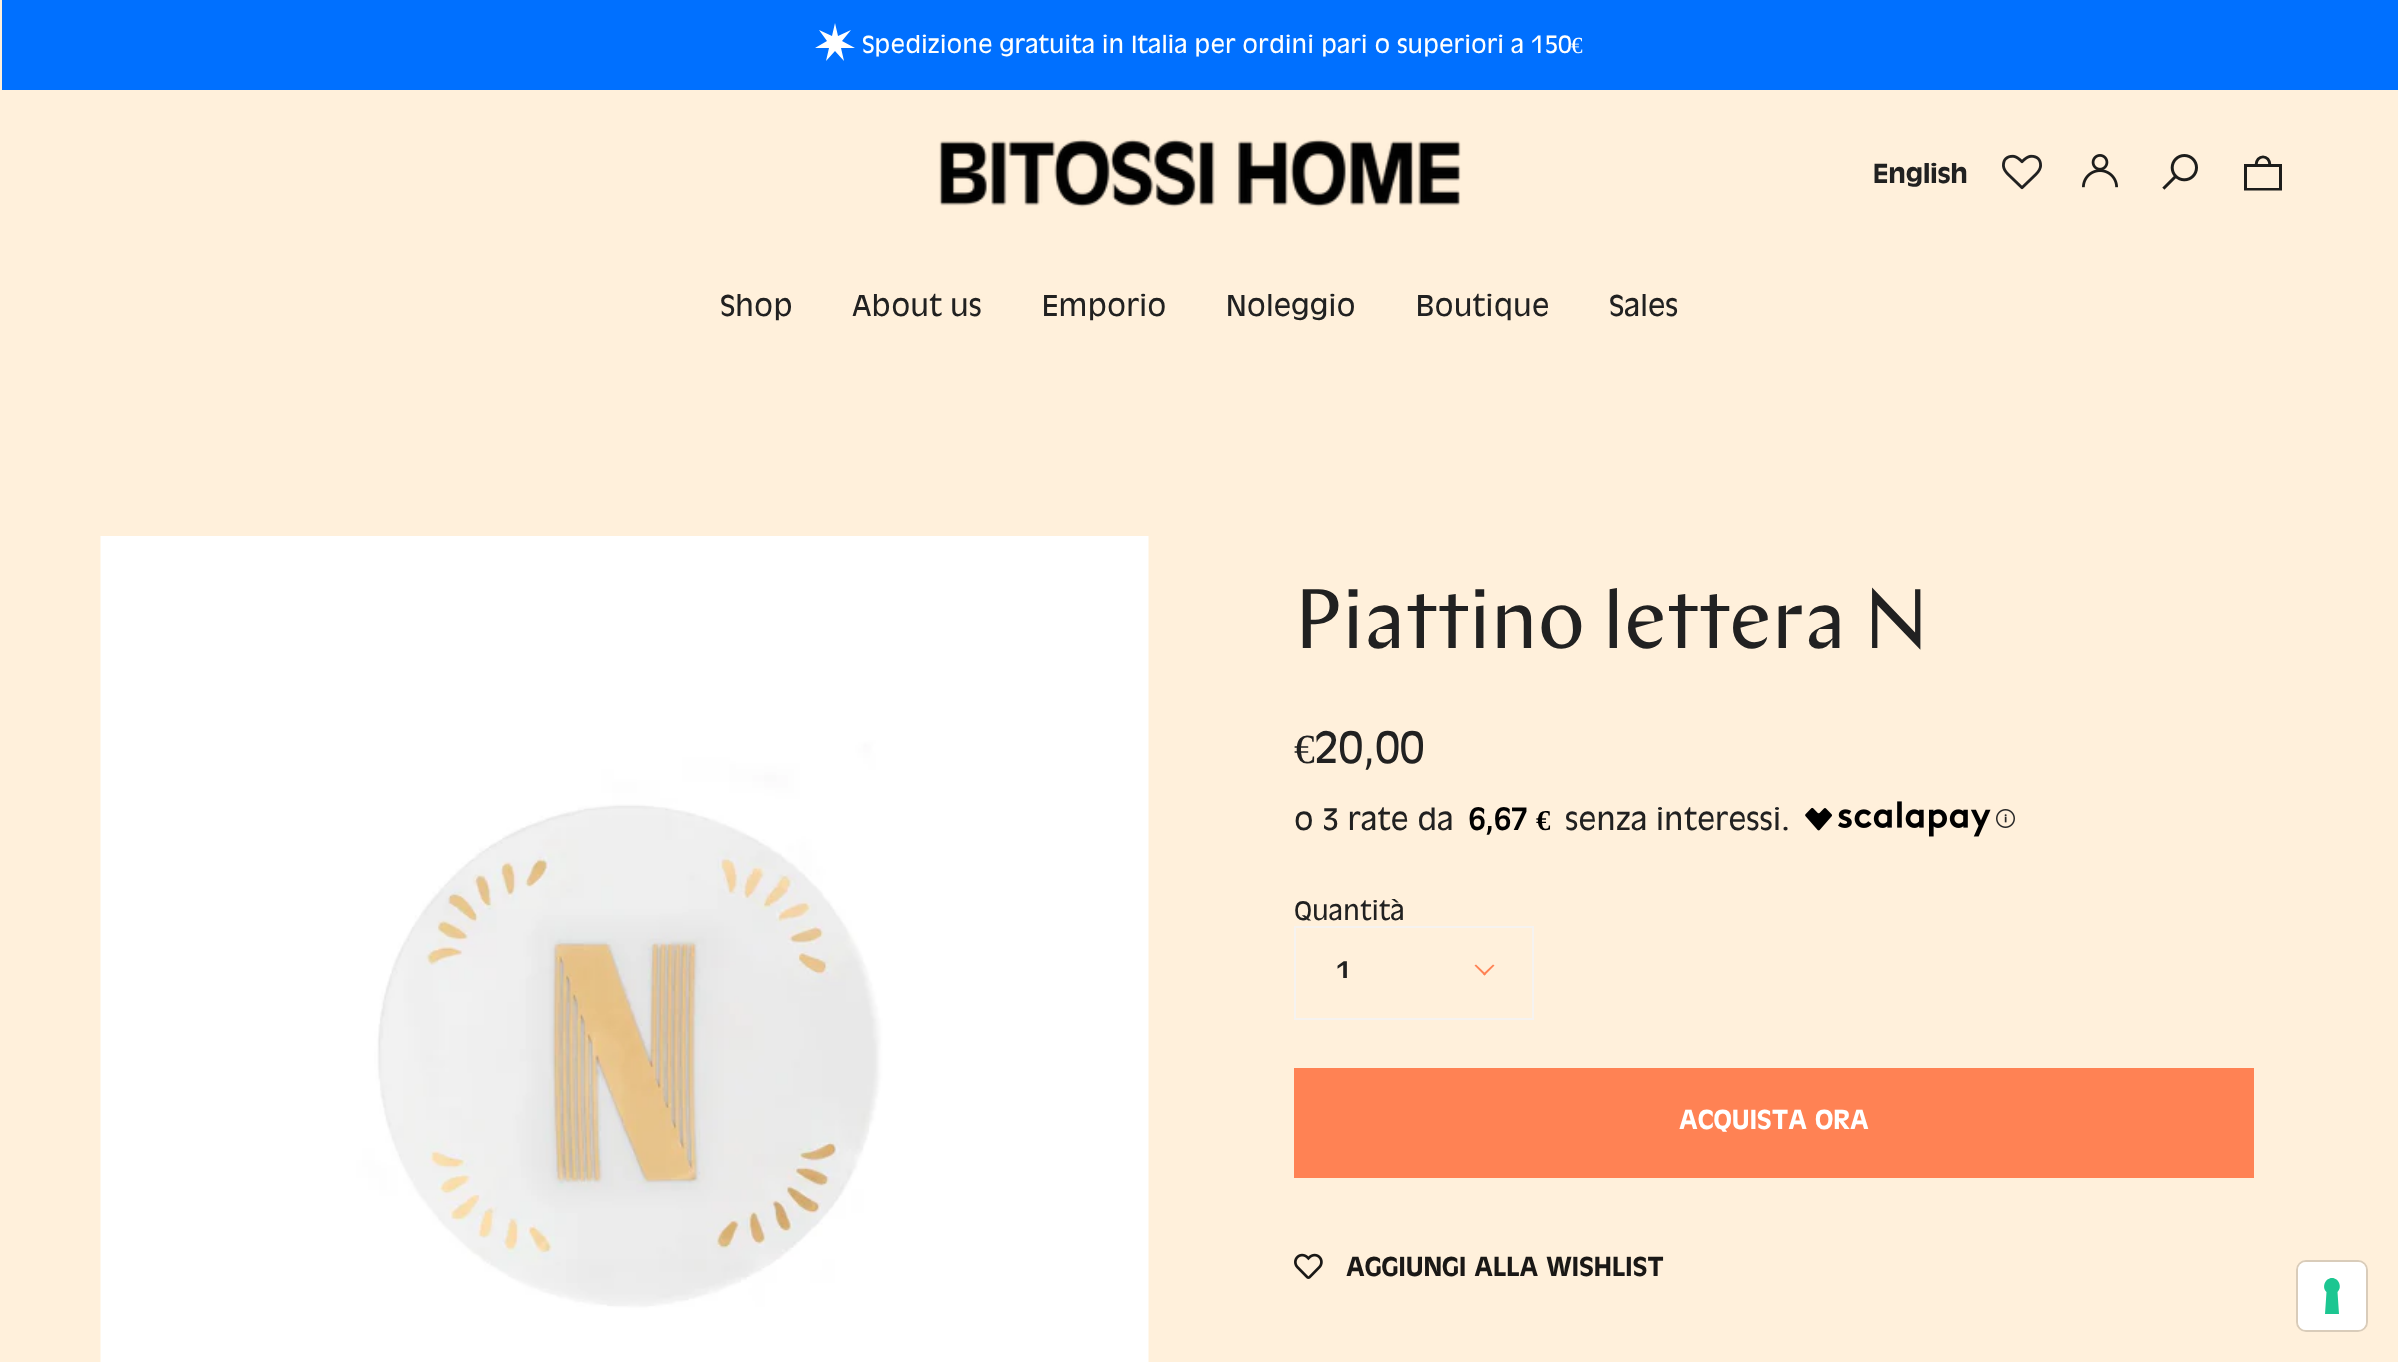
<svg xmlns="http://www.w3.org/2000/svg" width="2398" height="1362">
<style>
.a{font:23.05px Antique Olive;fill:#fff}
.b{font:23.05px Liberation Serif;fill:#fff}
.c{font:100 28.75px Antique Olive;fill:#212121}
.d{font:28px Antique Olive;fill:#212121}
.e{font:84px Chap;fill:#212121}
.f{font:41.5px Liberation Serif;fill:#212121}
.g{font:41.5px Antique Olive;fill:#212121}
.h{font:28.75px Antique Olive;fill:#212121}
.i{font:bold 28.75px Antique Olive;fill:#000}
.j{font:bold 28.75px Liberation Serif;fill:#000}
.k{font:25px Antique Olive;fill:#212121}
.l{font:100 25px Antique Olive;fill:#212121}
.m{font:100 28.75px Antique Olive;fill:#fff}
.n{font:100 28.75px Antique Olive;fill:#1a1816}
</style>
<rect width="100%" height="100%" fill="#fff0db"/>
<path fill="#0070ff" d="M2 0h2396v90H2z"/>
<path fill="#fff" d="M835 23l3 13l13-6l-9 11l13 7h-14l3 13l-9-10l-9 10l3-13h-14l12-7l-8-11l13 6z"/>
<image href="1.png" x="939" y="139" width="522" height="68"/>
<image href="2.png" x="2002" y="154" width="40" height="36"/>
<image href="3.png" x="2082" y="154" width="36" height="34"/>
<image href="4.png" x="2162" y="154" width="36" height="36"/>
<path fill="#1d1d1b" d="M2279 167v21h-32v-21h32m3-3h-38v26.5h38z"/>
<path fill="none" stroke="#1d1d1b" stroke-width="2.9" stroke-linecap="round" stroke-linejoin="round" d="M2270 165.5c0-11.5-14-11.5-14 0"/>
<image href="5.png" x="100" y="536" width="1049" height="826"/>
<image href="6.png" x="1805" y="801" width="186" height="36"/>
<image href="7.png" x="1996" y="809" width="19" height="19"/>
<path fill="none" stroke="#f6f3f0" stroke-width="2" d="M1295 927h238v92H1295z"/>
<path fill="#ff8254" d="M1483 974l10-9.5l1.5 1l-10 10z"/>
<path fill="#ff8254" d="M1474.5 965.5l1.5-1l10 9.5l-1.5 1.5z"/>
<path fill="#ff8254" d="M1294 1068h960v110H1294z"/>
<image href="8.png" x="1294" y="1253" width="29" height="26"/>
<rect fill="none" stroke="#d9ccba" stroke-width="2" x="2297" y="1261" width="70" height="70" rx="9"/>
<rect fill="#fff" x="2298" y="1262" width="68" height="68" rx="8"/>
<path fill="#1cc691" fill-rule="evenodd" d="M2332 1278c7 0 10.5 9.5 5.5 14l1.5 22h-14l1.5-22c-5-4.5-1.5-14 5.5-14z"/>
<text class="a" x="862" y="53">Spedizione gratuita in Italia per ordini pari o superiori a 150</text>
<text class="b" x="1571" y="53">€</text>
<text class="c" x="1873" y="183">English</text>
<text class="d" x="720" y="316">Shop</text>
<text class="d" x="852" y="316">About us</text>
<text class="d" x="1042" y="316">Emporio</text>
<text class="d" x="1226" y="316">Noleggio</text>
<text class="d" x="1416" y="316">Boutique</text>
<text class="d" x="1609" y="316">Sales</text>
<text class="e" x="1294" y="648">Piattino lettera N</text>
<text class="f" x="1294" y="763">€</text>
<text class="g" x="1314" y="763">20,00</text>
<text class="h" x="1294" y="830">o 3 rate da</text>
<text class="i" x="1468" y="830">6,67</text>
<text class="j" x="1536" y="830">€</text>
<text class="h" x="1565" y="830">senza interessi.</text>
<text class="k" x="1294" y="920">Quantità</text>
<text class="l" x="1336" y="978">1</text>
<text class="m" x="1679" y="1129">ACQUISTA ORA</text>
<text class="n" x="1346" y="1276">AGGIUNGI ALLA WISHLIST</text>
</svg>
